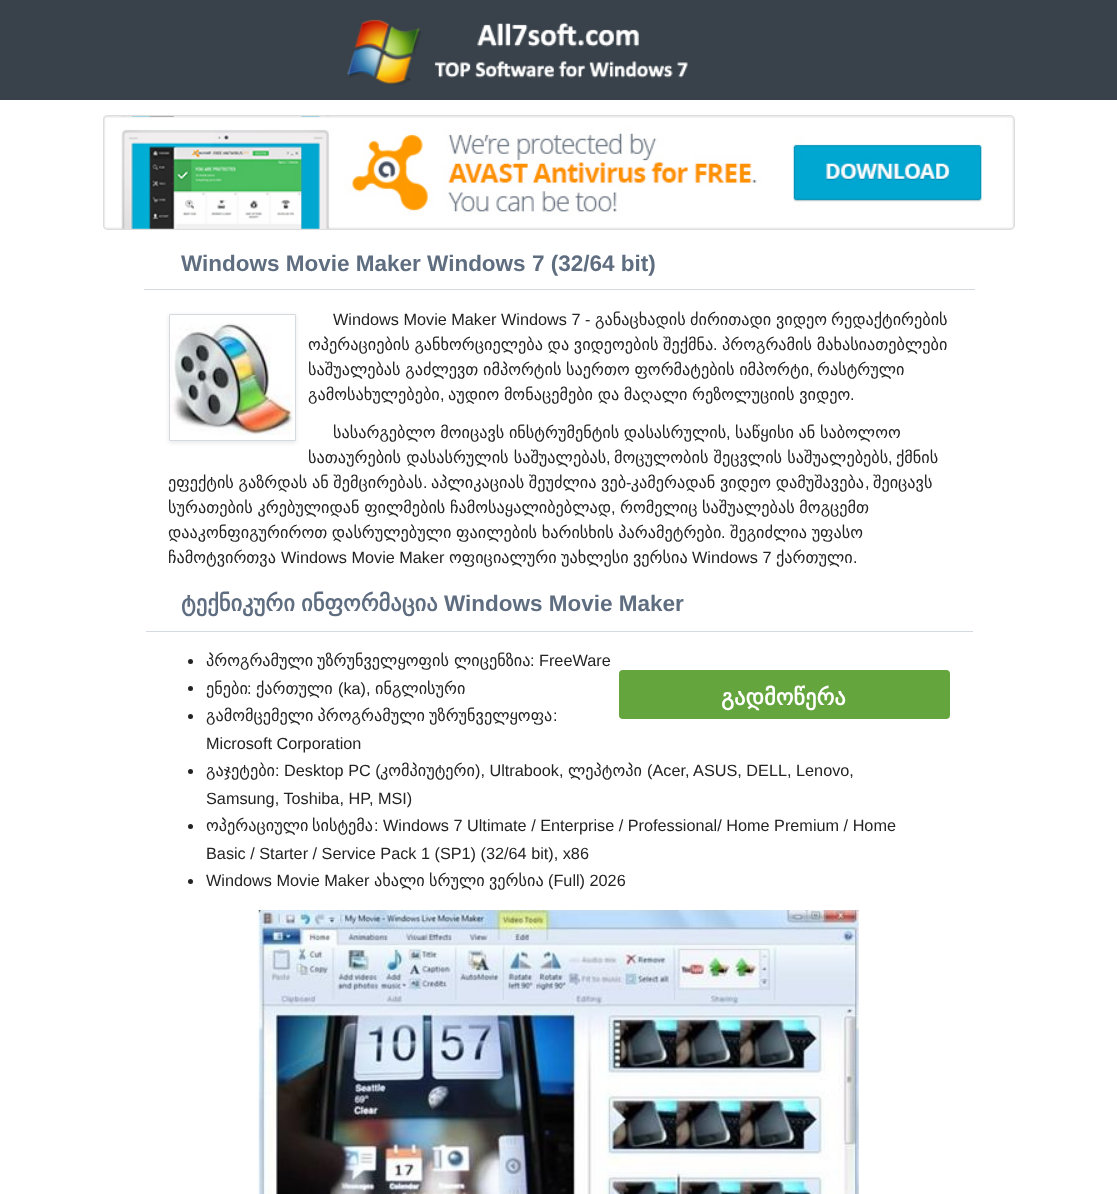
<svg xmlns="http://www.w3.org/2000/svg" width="1117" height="1194">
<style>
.a{font:bold 22.5px Liberation Sans;fill:#5f6d80}
.b{font:16.25px Liberation Sans;fill:#232323}
.c{font:16.25px DejaVu Sans;fill:#232323}
.d{font:bold 22.5px DejaVu Sans;fill:#5f6d80}
.e{font:bold 22.5px DejaVu Sans;fill:#fff}
</style>
<defs>
<clipPath id="clip1"><path d="M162 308h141v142h-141zm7 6h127v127h-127z" clip-rule="evenodd"/></clipPath>
</defs>
<rect width="100%" height="100%" fill="#fff"/>
<path fill="#39424b" d="M0 0h1117v100H0z"/>
<image href="1.png" x="347" y="19" width="341" height="66"/>
<image href="2.png" x="103" y="115" width="912" height="115"/>
<rect fill="none" stroke="#ddd" x="103.5" y="115.5" width="911" height="114" rx="4.5"/>
<path fill="#d4dadf" d="M144 289h831v1H144z"/>
<g clip-path="url(#clip1)">
<path fill="#e9e9e9" filter="blur(2px)" d="M169 315h127v128H169z"/>
</g>
<path fill="none" stroke="#d4dadf" d="M169.5 314.5h126v126H169.5z"/>
<image href="3.png" x="170" y="323" width="123" height="112"/>
<path fill="#d4dadf" d="M146 631h827v1H146z"/>
<circle fill="#232323" cx="190.5" cy="661.5" r="2.5"/>
<circle fill="#232323" cx="190.5" cy="688.5" r="2.5"/>
<circle fill="#232323" cx="190.5" cy="716.5" r="2.5"/>
<circle fill="#232323" cx="190.5" cy="771.5" r="2.5"/>
<circle fill="#232323" cx="190.5" cy="826.5" r="2.5"/>
<circle fill="#232323" cx="190.5" cy="881.5" r="2.5"/>
<rect fill="#64a53e" x="619" y="670" width="331" height="49" rx="4"/>
<image href="4.png" x="258" y="910" width="601" height="284"/>
<text class="a" x="181" y="271">Windows Movie Maker Windows 7 (32/64 bit)</text>
<text class="b" x="333" y="325">Windows Movie Maker Windows 7 -</text>
<text class="c" x="595" y="325">განაცხადის</text>
<text class="c" x="690" y="325">ძირითადი</text>
<text class="c" x="776" y="325">ვიდეო</text>
<text class="c" x="831" y="325">რედაქტირების</text>
<text class="c" x="308" y="350" word-spacing="-0.5">ოპერაციების განხორციელება და ვიდეოების შექმნა</text>
<text class="b" x="713" y="350">.</text>
<text class="c" x="722" y="350" word-spacing="-0.5">პროგრამის მახასიათებლები</text>
<text class="c" x="308" y="375" word-spacing="-0.5">საშუალებას გაძლევთ იმპორტის საერთო ფორმატების იმპორტი</text>
<text class="b" x="809" y="375">,</text>
<text class="c" x="817" y="375">რასტრული</text>
<text class="c" x="308" y="400">გამოსახულებები</text>
<text class="b" x="440" y="400">,</text>
<text class="c" x="448" y="400" word-spacing="-0.5">აუდიო მონაცემები და მაღალი რეზოლუციის ვიდეო</text>
<text class="b" x="850" y="400">.</text>
<text class="c" x="333" y="438" word-spacing="-0.5">სასარგებლო მოიცავს ინსტრუმენტის დასასრულის</text>
<text class="b" x="726" y="438">,</text>
<text class="c" x="735" y="438" word-spacing="-0.5">საწყისი ან საბოლოო</text>
<text class="c" x="308" y="463">სათაურების დასასრულის საშუალებას</text>
<text class="b" x="606" y="463">,</text>
<text class="c" x="614" y="463">მოცულობის შეცვლის საშუალებებს</text>
<text class="b" x="888" y="463">,</text>
<text class="c" x="896" y="463">ქმნის</text>
<text class="c" x="168" y="488" word-spacing="-0.5">ეფექტის გაზრდას ან შემცირებას</text>
<text class="c" x="431" y="488" word-spacing="-0.5">აპლიკაციას შეუძლია ვებ კამერადან ვიდეო დამუშავება</text>
<text class="c" x="873" y="488">შეიცავს</text>
<text class="b" x="626" y="488">-</text>
<text class="b" x="423" y="488">.</text>
<text class="b" x="865" y="488">,</text>
<text class="c" x="168" y="513" word-spacing="-0.5">სურათების კრებულიდან ფილმების ჩამოსაყალიბებლად</text>
<text class="b" x="611" y="513">,</text>
<text class="c" x="620" y="513" word-spacing="-0.5">რომელიც საშუალებას მოგცემთ</text>
<text class="c" x="168" y="538" word-spacing="-0.5">დააკონფიგურიროთ დასრულებული ფაილების ხარისხის პარამეტრები</text>
<text class="b" x="721" y="538">.</text>
<text class="c" x="730" y="538" word-spacing="-0.5">შეგიძლია უფასო</text>
<text class="c" x="168" y="563">ჩამოტვირთვა</text>
<text class="b" x="281" y="563">Windows Movie Maker</text>
<text class="c" x="449" y="563">ოფიციალური</text>
<text class="c" x="561" y="563">უახლესი</text>
<text class="c" x="633" y="563">ვერსია</text>
<text class="b" x="692" y="563">Windows 7</text>
<text class="c" x="776" y="563">ქართული</text>
<text class="b" x="853" y="563">.</text>
<text class="d" x="181" y="611">ტექნიკური</text>
<text class="d" x="301" y="611">ინფორმაცია</text>
<text class="a" x="444" y="611">Windows Movie Maker</text>
<text class="c" x="206" y="666">პროგრამული</text>
<text class="c" x="317" y="666">უზრუნველყოფის</text>
<text class="c" x="454" y="666">ლიცენზია</text>
<text class="b" x="530" y="666">: FreeWare</text>
<text class="c" x="206" y="694">ენები</text>
<text class="b" x="247" y="694">:</text>
<text class="c" x="256" y="694">ქართული</text>
<text class="b" x="338" y="694">(ka),</text>
<text class="c" x="375" y="694">ინგლისური</text>
<text class="c" x="206" y="721" word-spacing="-1">გამომცემელი პროგრამული უზრუნველყოფა</text>
<text class="b" x="553" y="721">:</text>
<text class="b" x="206" y="749">Microsoft Corporation</text>
<text class="c" x="206" y="776">გაჯეტები</text>
<text class="b" x="275" y="776">: Desktop PC (</text>
<text class="c" x="380" y="776">კომპიუტერი</text>
<text class="b" x="475" y="776">), Ultrabook,</text>
<text class="c" x="568" y="776">ლეპტოპი</text>
<text class="b" x="647" y="776">(Acer, ASUS, DELL, Lenovo,</text>
<text class="b" x="206" y="804">Samsung, Toshiba, HP, MSI)</text>
<text class="c" x="206" y="831">ოპერაციული</text>
<text class="c" x="312" y="831">სისტემა</text>
<text class="b" x="374" y="831">: Windows 7 Ultimate / Enterprise / Professional/ Home Premium / Home</text>
<text class="b" x="206" y="859">Basic / Starter / Service Pack 1 (SP1) (32/64 bit), x86</text>
<text class="b" x="206" y="886">Windows Movie Maker</text>
<text class="c" x="374" y="886">ახალი</text>
<text class="c" x="429" y="886">სრული</text>
<text class="c" x="489" y="886">ვერსია</text>
<text class="b" x="548" y="886">(Full) 2026</text>
<text class="e" x="721" y="705">გადმოწერა</text>
</svg>
